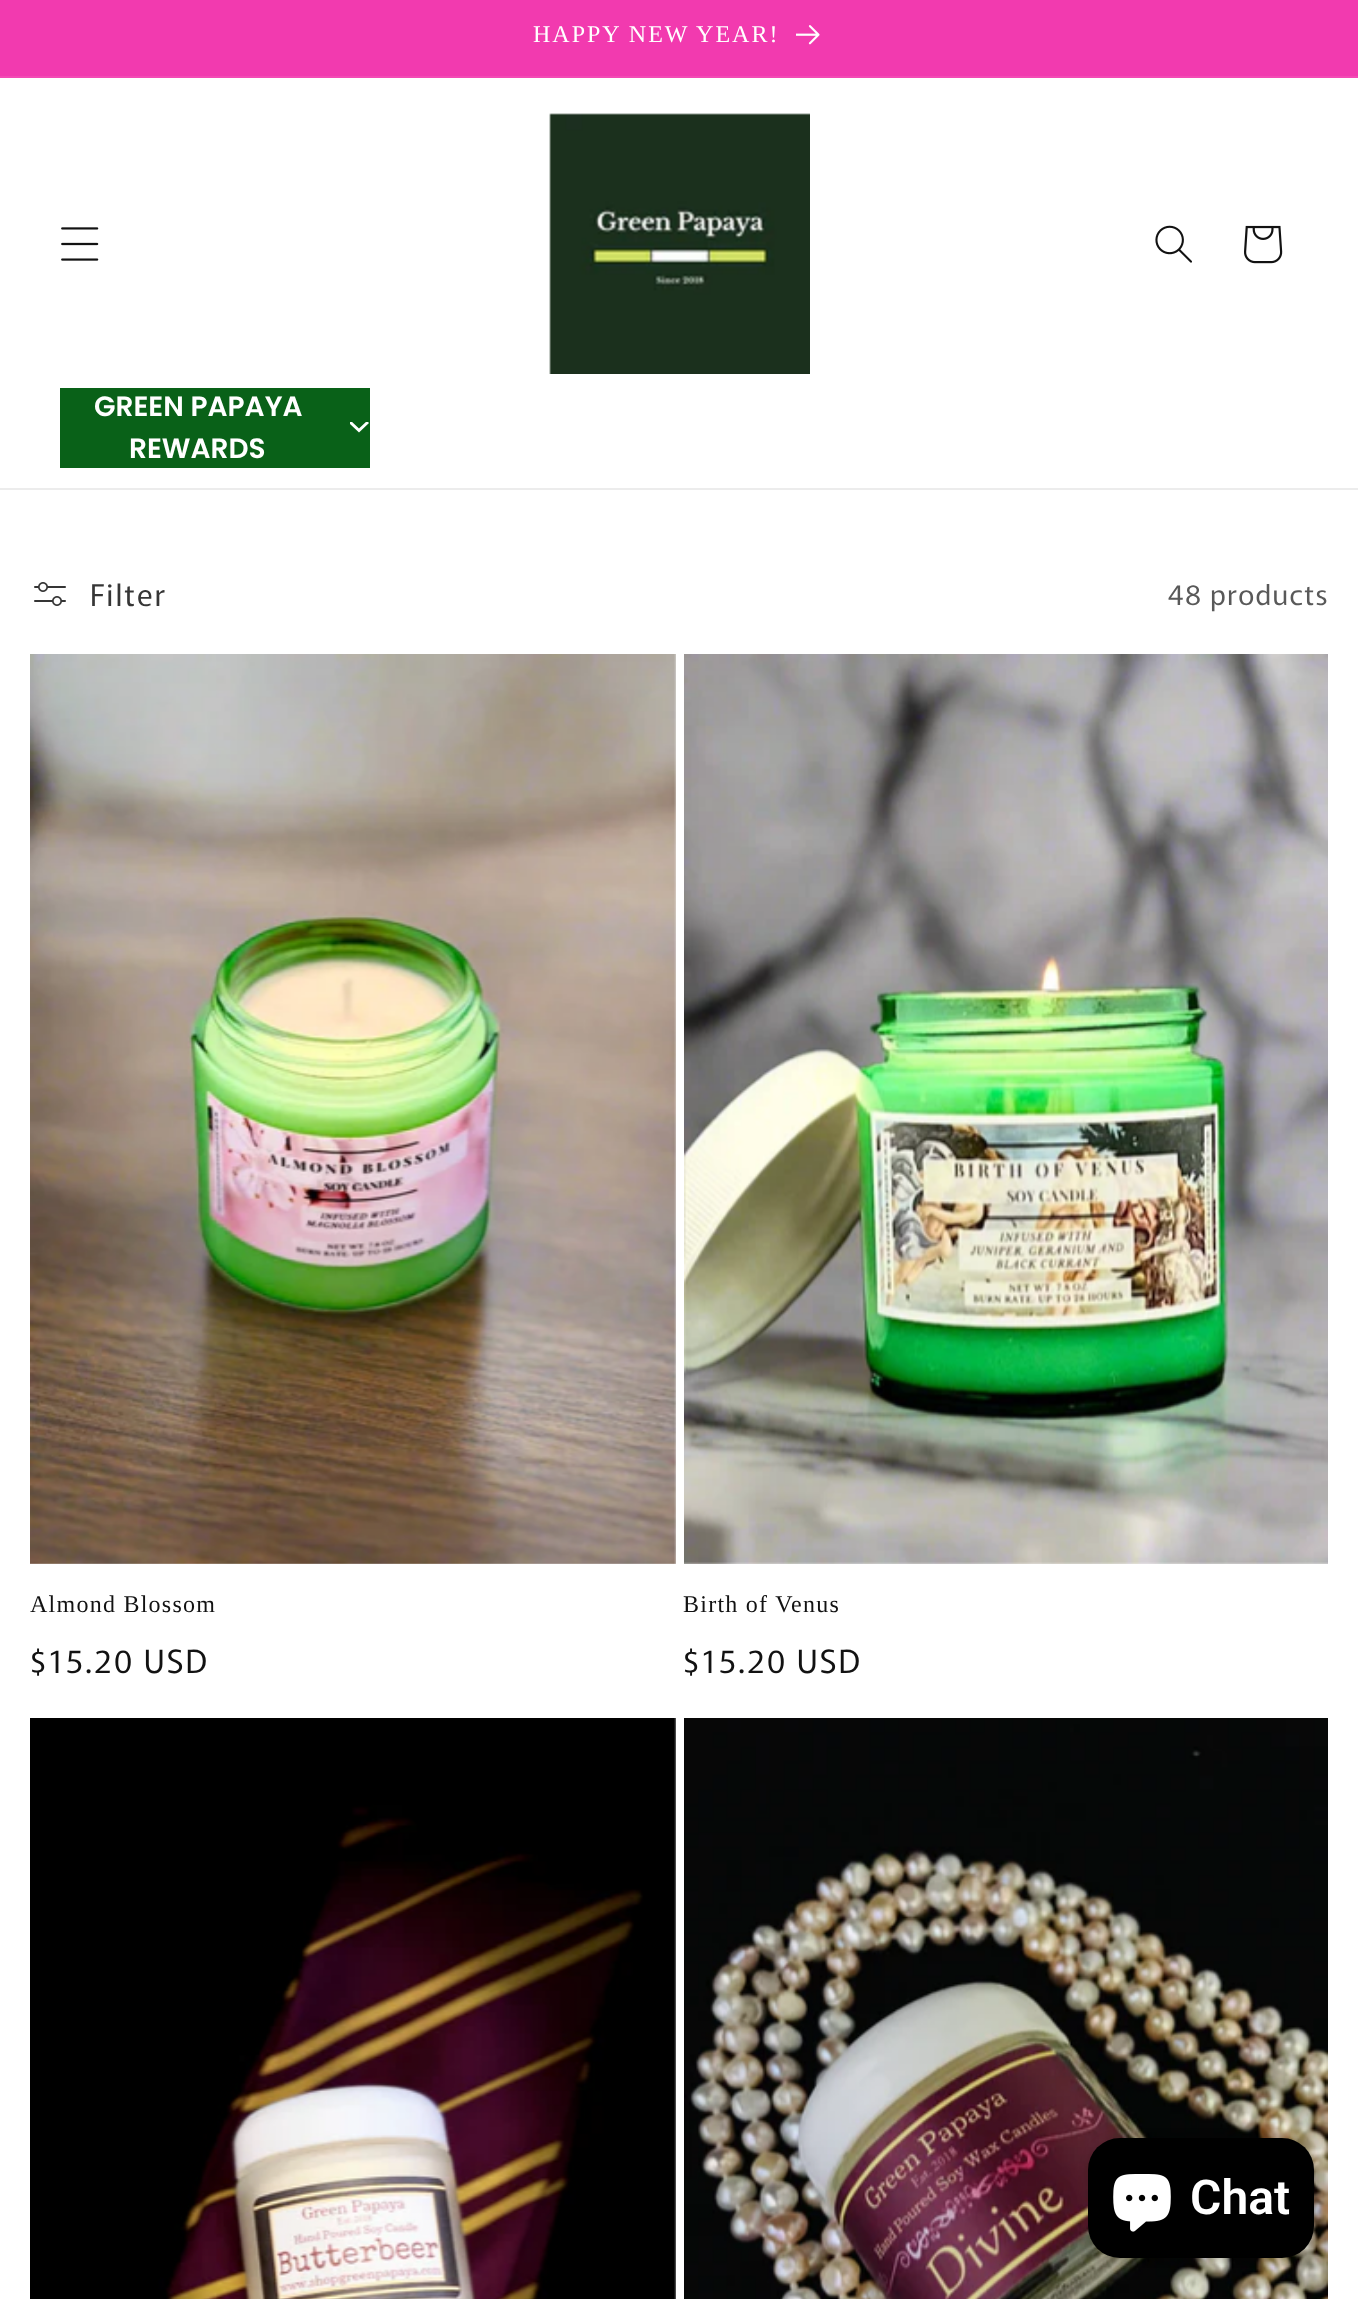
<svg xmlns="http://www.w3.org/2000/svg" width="1358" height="2299">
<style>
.a{font:24px Liberation Serif;letter-spacing:2px;fill:#fff}
.b{font:600 28px Poppins;fill:#fff}
.c{font:30px Murecho;letter-spacing:2px;fill:#363636}
.d{font:28px Murecho;letter-spacing:1.25px;fill:#595959}
.e{font:24px Liberation Serif;letter-spacing:1.25px;fill:#121212}
.f{font:32px Murecho;letter-spacing:2px;fill:#121212}
.g{font:600 48px Roboto;fill:#fff}
</style>
<defs>
<clipPath id="clip1"><path d="M350 422h20v14H350z"/></clipPath>
</defs>
<rect width="100%" height="100%" fill="#fff"/>
<path fill="#f23aaf" d="M0 0h1358v76H0z"/>
<path fill="#f34ab5" d="M0 76h1358v2H0z"/>
<image href="1.png" x="796" y="25" width="24" height="20"/>
<path fill="#ececec" d="M0 488h1358v2H0z"/>
<image href="2.png" x="61" y="227" width="38" height="34"/>
<image href="3.png" x="549" y="113" width="261" height="261"/>
<image href="4.png" x="1155" y="225" width="37" height="38"/>
<image href="5.png" x="1244" y="225" width="39" height="39"/>
<path fill="#096118" d="M60 388h310v80H60z"/>
<g clip-path="url(#clip1)">
<path fill="#fff" d="M359 428.5l8-7.5l2 2l-10 9.5l-10-9.5l2-2z"/>
</g>
<image href="6.png" x="34" y="582" width="32" height="24"/>
<path fill="#f3f3f3" d="M30 654h646v910H30z"/>
<image href="7.png" x="30" y="654" width="646" height="910"/>
<image href="8.png" x="684" y="654" width="644" height="910"/>
<path fill="#f3f3f3" d="M674 1718h2v581H674z"/>
<image href="9.png" x="30" y="1718" width="646" height="581"/>
<image href="10.png" x="684" y="1718" width="644" height="581"/>
<rect fill="#00000026" filter="blur(5px)" x="1088" y="2138" width="226" height="120" rx="32"/>
<rect fill="#000" x="1088" y="2138" width="226" height="120" rx="32"/>
<image href="11.png" x="1113" y="2174" width="58" height="58"/>
<text class="a" x="533" y="42">HAPPY NEW YEAR!</text>
<text class="b" x="94" y="416">GREEN PAPAYA</text>
<text class="b" x="129" y="458">REWARDS</text>
<text class="c" x="90" y="606">Filter</text>
<text class="d" x="1168" y="605">48 products</text>
<text class="e" x="30" y="1612">Almond Blossom</text>
<text class="f" x="30" y="1673">$15.20 USD</text>
<text class="e" x="683" y="1612">Birth of Venus</text>
<text class="f" x="683" y="1673">$15.20 USD</text>
<text class="g" x="1190" y="2214">Chat</text>
</svg>
